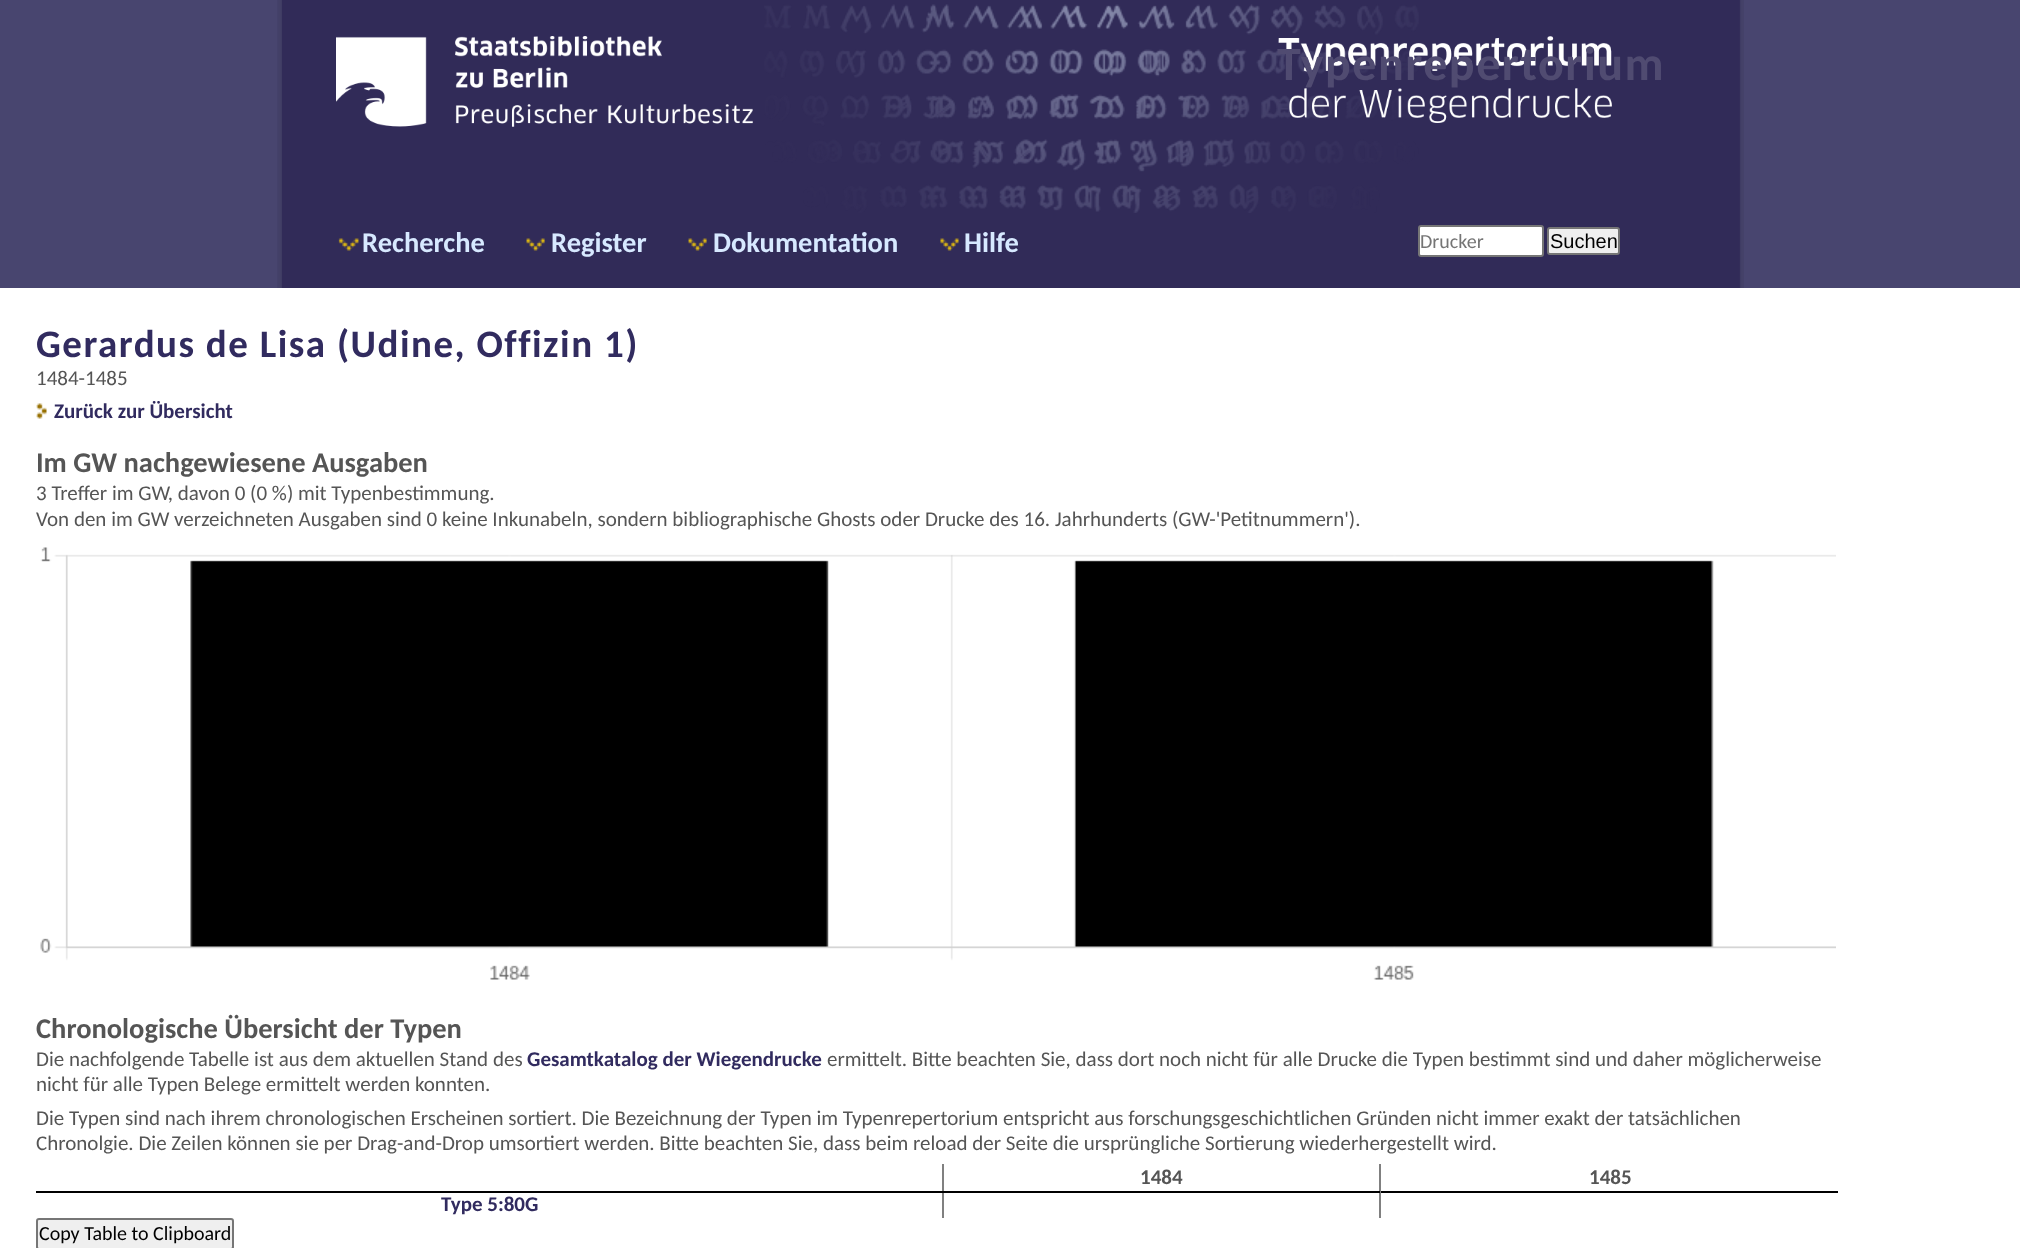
<svg xmlns="http://www.w3.org/2000/svg" width="2020" height="1248">
<style>
.a{font:bold 48px Carlito;letter-spacing:1.5px;fill:#504b71}
.b{font:bold 28.5px Carlito;fill:#d7e9ff}
.c{font:20px Carlito;fill:#757575}
.d{font:20px Liberation Sans;fill:#000}
.e{font:bold 39px Carlito;letter-spacing:1.5px;fill:#312b5f}
.f{font:21px Carlito;fill:#555}
.g{font:bold 21px Carlito;fill:#312b5f}
.h{font:bold 28.5px Carlito;fill:#555}
.i{font:bold 21px Carlito;fill:#555}
.j{font:20px Carlito;fill:#000}
</style>
<rect width="100%" height="100%" fill="#fff"/>
<path fill="#48456f" d="M0 0h2020v288H0z"/>
<image href="1.png" x="277" y="0" width="1467" height="288"/>
<path fill="#312b58" d="M282 0h1v288H282z"/>
<image href="2.png" x="764" y="4" width="655" height="209"/>
<image href="3.png" x="336" y="36" width="417" height="91"/>
<image href="4.png" x="1278" y="36" width="334" height="87"/>
<image href="5.png" x="338" y="238" width="21" height="13"/>
<image href="6.png" x="526" y="238" width="19" height="13"/>
<image href="6.png" x="688" y="238" width="19" height="13"/>
<image href="7.png" x="940" y="238" width="19" height="13"/>
<rect fill="#fff" stroke="#767676" stroke-width="2" x="1419" y="226" width="124" height="30" rx="2"/>
<rect fill="#efefef" stroke="#767676" stroke-width="2" x="1548" y="228" width="71" height="26" rx="2"/>
<image href="8.png" x="36" y="403" width="11" height="16"/>
<image href="9.png" x="40" y="547" width="1796" height="433"/>
<path fill="#808080" d="M1379 1191h2v27H1379z"/>
<path fill="#000" d="M1379 1191h459v2H1379z"/>
<path fill="#808080" d="M1379 1164h2v29H1379z"/>
<path fill="#808080" d="M942 1191h2v27H942z"/>
<path fill="#000" d="M942 1191h438v2H942z"/>
<path fill="#808080" d="M942 1164h2v29H942z"/>
<path fill="#000" d="M36 1191h908v2H36z"/>
<rect fill="#efefef" stroke="#767676" stroke-width="2" x="37" y="1219" width="196" height="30" rx="2"/>
<text class="a" x="1277" y="80">Typenrepertorium</text>
<text class="b" x="362" y="252">Recherche</text>
<text class="b" x="551" y="252">Register</text>
<text class="b" x="713" y="252">Dokumentation</text>
<text class="b" x="964" y="252">Hilfe</text>
<text class="c" x="1420" y="248">Drucker</text>
<text class="d" x="1550" y="248">Suchen</text>
<text class="e" x="36" y="357">Gerardus de Lisa (Udine, Offizin 1)</text>
<text class="f" x="36" y="385">1484-1485</text>
<text class="g" x="54" y="418">Zurück zur Übersicht</text>
<text class="h" x="36" y="472">Im GW nachgewiesene Ausgaben</text>
<text class="f" x="36" y="500">3 Treffer im GW, davon 0 (0 %) mit Typenbestimmung.</text>
<text class="f" x="36" y="526">Von den im GW verzeichneten Ausgaben sind 0 keine Inkunabeln, sondern bibliographische Ghosts oder Drucke des 16. Jahrhunderts (GW-'Petitnummern').</text>
<text class="h" x="36" y="1038">Chronologische Übersicht der Typen</text>
<text class="f" x="36" y="1066">Die nachfolgende Tabelle ist aus dem aktuellen Stand des</text>
<text class="g" x="527" y="1066">Gesamtkatalog der Wiegendrucke</text>
<text class="f" x="827" y="1066">ermittelt. Bitte beachten Sie, dass dort noch nicht für alle Drucke die Typen bestimmt sind und daher möglicherweise</text>
<text class="f" x="36" y="1091">nicht für alle Typen Belege ermittelt werden konnten.</text>
<text class="f" x="36" y="1125">Die Typen sind nach ihrem chronologischen Erscheinen sortiert. Die Bezeichnung der Typen im Typenrepertorium entspricht aus forschungsgeschichtlichen Gründen nicht immer exakt der tatsächlichen</text>
<text class="f" x="36" y="1150">Chronolgie. Die Zeilen können sie per Drag-and-Drop umsortiert werden. Bitte beachten Sie, dass beim reload der Seite die ursprüngliche Sortierung wiederhergestellt wird.</text>
<text class="i" x="1140" y="1184">1484</text>
<text class="i" x="1589" y="1184">1485</text>
<text class="g" x="441" y="1211">Type 5:80G</text>
<text class="j" x="39" y="1240">Copy Table to Clipboard</text>
</svg>
